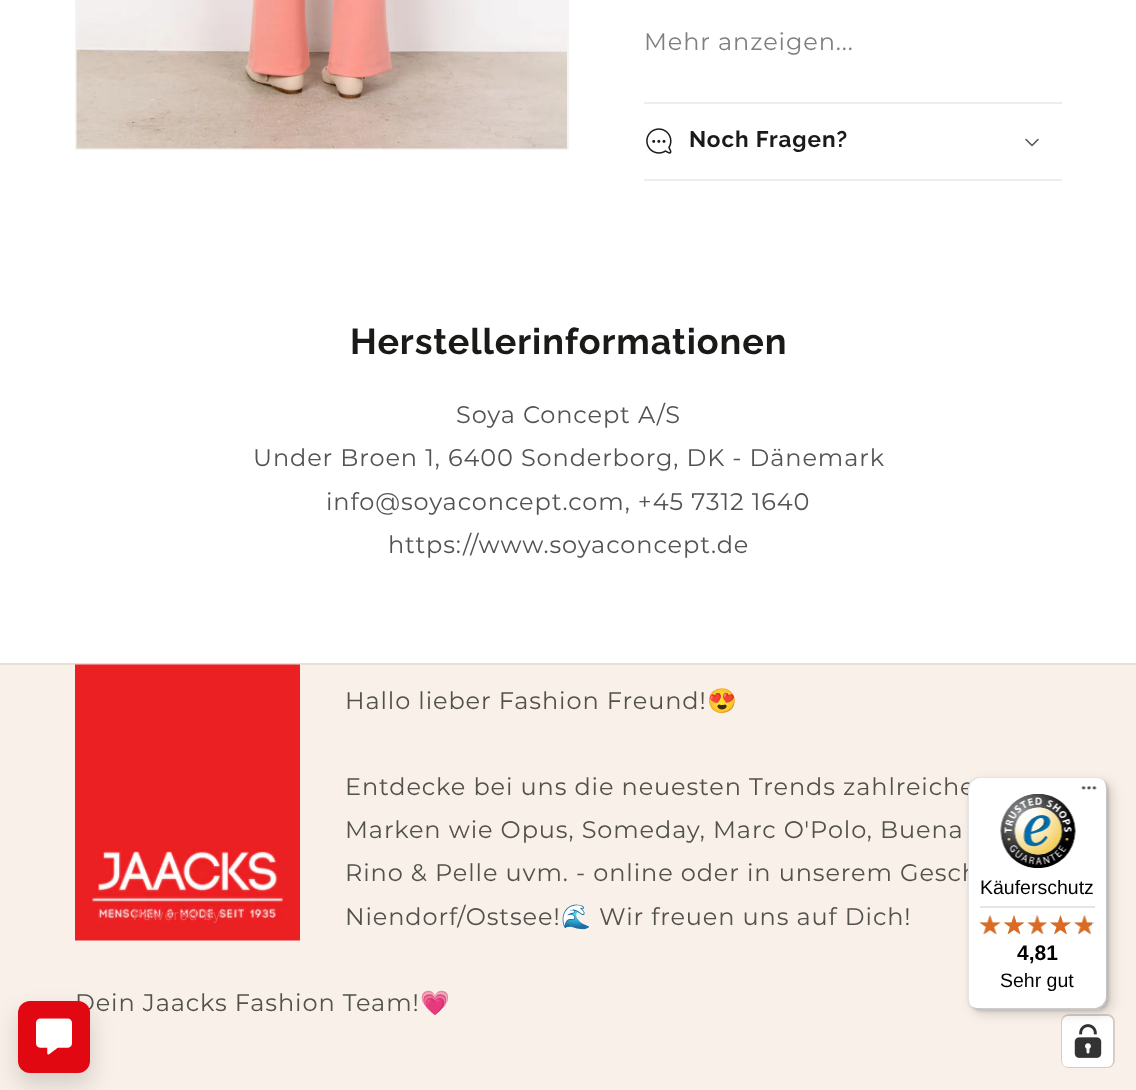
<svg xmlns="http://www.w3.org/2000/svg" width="1136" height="1090">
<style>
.a{font:100 24px Montserrat;letter-spacing:0.9px;fill:#808080}
.b{font:bold 22.5px Raleway;letter-spacing:0.9px;fill:#1a1b18}
.c{font:bold 36px Raleway;letter-spacing:0.9px;fill:#1a1b18}
.d{font:100 24px Montserrat;letter-spacing:0.9px;fill:#535452}
.e{font:100 24px Montserrat;letter-spacing:0.9px;fill:#52514c}
.f{font:24px Noto Color Emoji;letter-spacing:0.9px;fill:#52514c}
.g{font:19.5px Liberation Sans;fill:#000}
.h{font:bold 21px Liberation Sans;fill:#000}
.i{font:14.5px Inter;letter-spacing:0.75px;fill:#ee5254}
</style>
<rect width="100%" height="100%" fill="#fff"/>
<path fill="none" stroke="#f4f4f3" stroke-width="2" d="M76 -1h492v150H76z"/>
<image href="1.png" x="76" y="0" width="491" height="149"/>
<path fill="#ededed" d="M644 102h418v2H644z"/>
<path fill="#ededed" d="M644 179h418v2H644z"/>
<image href="2.png" x="646" y="128" width="26" height="26"/>
<image href="3.png" x="1025" y="138" width="14" height="9"/>
<path fill="#f9f1e9" d="M0 665h1136v425H0z"/>
<path fill="#e7e0d8" d="M0 663h1136v2H0z"/>
<image href="4.png" x="75" y="664" width="225" height="277"/>
<rect fill="none" stroke="#d4cdc6" stroke-width="2" x="1062" y="1015" width="52" height="52" rx="7"/>
<rect fill="#fff" x="1062" y="1016" width="51" height="51" rx="6"/>
<image href="18.png" x="1074" y="1024" width="28" height="34"/>
<rect fill="#00000026" filter="blur(6px)" x="972" y="782" width="140" height="232" rx="12"/>
<rect fill="#00000026" filter="blur(1.5px)" x="969" y="779" width="140" height="232" rx="12"/>
<rect fill="#00000024" filter="blur(11px)" x="17" y="1011" width="75" height="75" rx="14"/>
<text class="a" x="644" y="50">Mehr anzeigen...</text>
<text class="b" x="689" y="147">Noch Fragen?</text>
<text class="c" x="350" y="354">Herstellerinformationen</text>
<text class="d" x="456" y="423">Soya Concept A/S</text>
<text class="d" x="253" y="466">Under Broen 1, 6400 Sonderborg, DK - Dänemark</text>
<text class="d" x="326" y="510">info@soyaconcept.com, +45 7312 1640</text>
<text class="d" x="388" y="553">https://www.soyaconcept.de</text>
<text class="e" x="345" y="709">Hallo lieber Fashion Freund!</text>
<text class="f" x="707" y="709">😍</text>
<text class="e" x="345" y="795">Entdecke bei uns die neuesten Trends zahlreiche</text>
<text class="e" x="345" y="838">Marken wie Opus, Someday, Marc O'Polo, Buena</text>
<text class="e" x="345" y="881">Rino &amp; Pelle uvm. - online oder in unserem Gesch</text>
<text class="e" x="345" y="925">Niendorf/Ostsee!</text>
<text class="f" x="561" y="925">🌊</text>
<text class="e" x="599" y="925">Wir freuen uns auf Dich!</text>
<text class="e" x="75" y="1011">Dein Jaacks Fashion Team!</text>
<text class="f" x="420" y="1011">💗</text>
<rect fill="#fff" x="968" y="777" width="139" height="233" rx="12"/>
<path fill="#0000001a" d="M981 778h115c3 0 6 1 8 3c-2-2-5-4-9-4h-115c-7 0-12 5-12 12v209c0 3 1 6 3 8c-1-2-2-4-2-7v-209c0-6 5-12 12-12z"/>
<path fill="#00000033" d="M971 1006c2 2 5 4 9 4h115c7 0 12-5 12-12v-209c0-4-2-7-4-9c2 2 3 5 3 8v208c0 7-6 12-12 12h-116c-3 0-5-1-7-2z"/>
<path fill="#32323233" d="M971 1006c2 2 5 4 9 4h115c7 0 12-5 12-12v-209c0-3-1-6-3-8c1 2 2 4 2 7v209c0 6-5 12-12 12h-115c-3 0-6-1-8-3z"/>
<path fill="#ffffff4d" d="M971 1006c2 2 5 4 9 4h115c7 0 12-5 12-12v-209c0-4-2-7-4-9c2 2 3 5 3 8v209c0 6-5 12-12 12h-115c-3 0-6-1-8-3z"/>
<image href="5.png" x="1081" y="786" width="16" height="4"/>
<image href="6.png" x="1000" y="794" width="76" height="75"/>
<text class="g" x="980" y="894">Käuferschutz</text>
<path fill="#e5e5e5" d="M980 906h115v2H980z"/>
<image href="7.png" x="979" y="915" width="22" height="19"/>
<image href="8.png" x="1004" y="915" width="20" height="19"/>
<image href="9.png" x="1027" y="915" width="20" height="19"/>
<image href="10.png" x="1050" y="915" width="21" height="19"/>
<image href="11.png" x="1074" y="915" width="21" height="19"/>
<image href="12.png" x="979" y="915" width="22" height="19"/>
<image href="13.png" x="1004" y="915" width="20" height="20"/>
<image href="14.png" x="1027" y="915" width="20" height="19"/>
<image href="15.png" x="1050" y="915" width="21" height="20"/>
<image href="16.png" x="1074" y="915" width="18" height="19"/>
<text class="h" x="1017" y="960">4,81</text>
<text class="g" x="1000" y="987">Sehr gut</text>
<text class="i" x="133" y="920">Powered by</text>
<rect fill="#e10812" x="18" y="1001" width="72" height="72" rx="12"/>
<image href="17.png" x="36" y="1018" width="36" height="37"/>
</svg>
